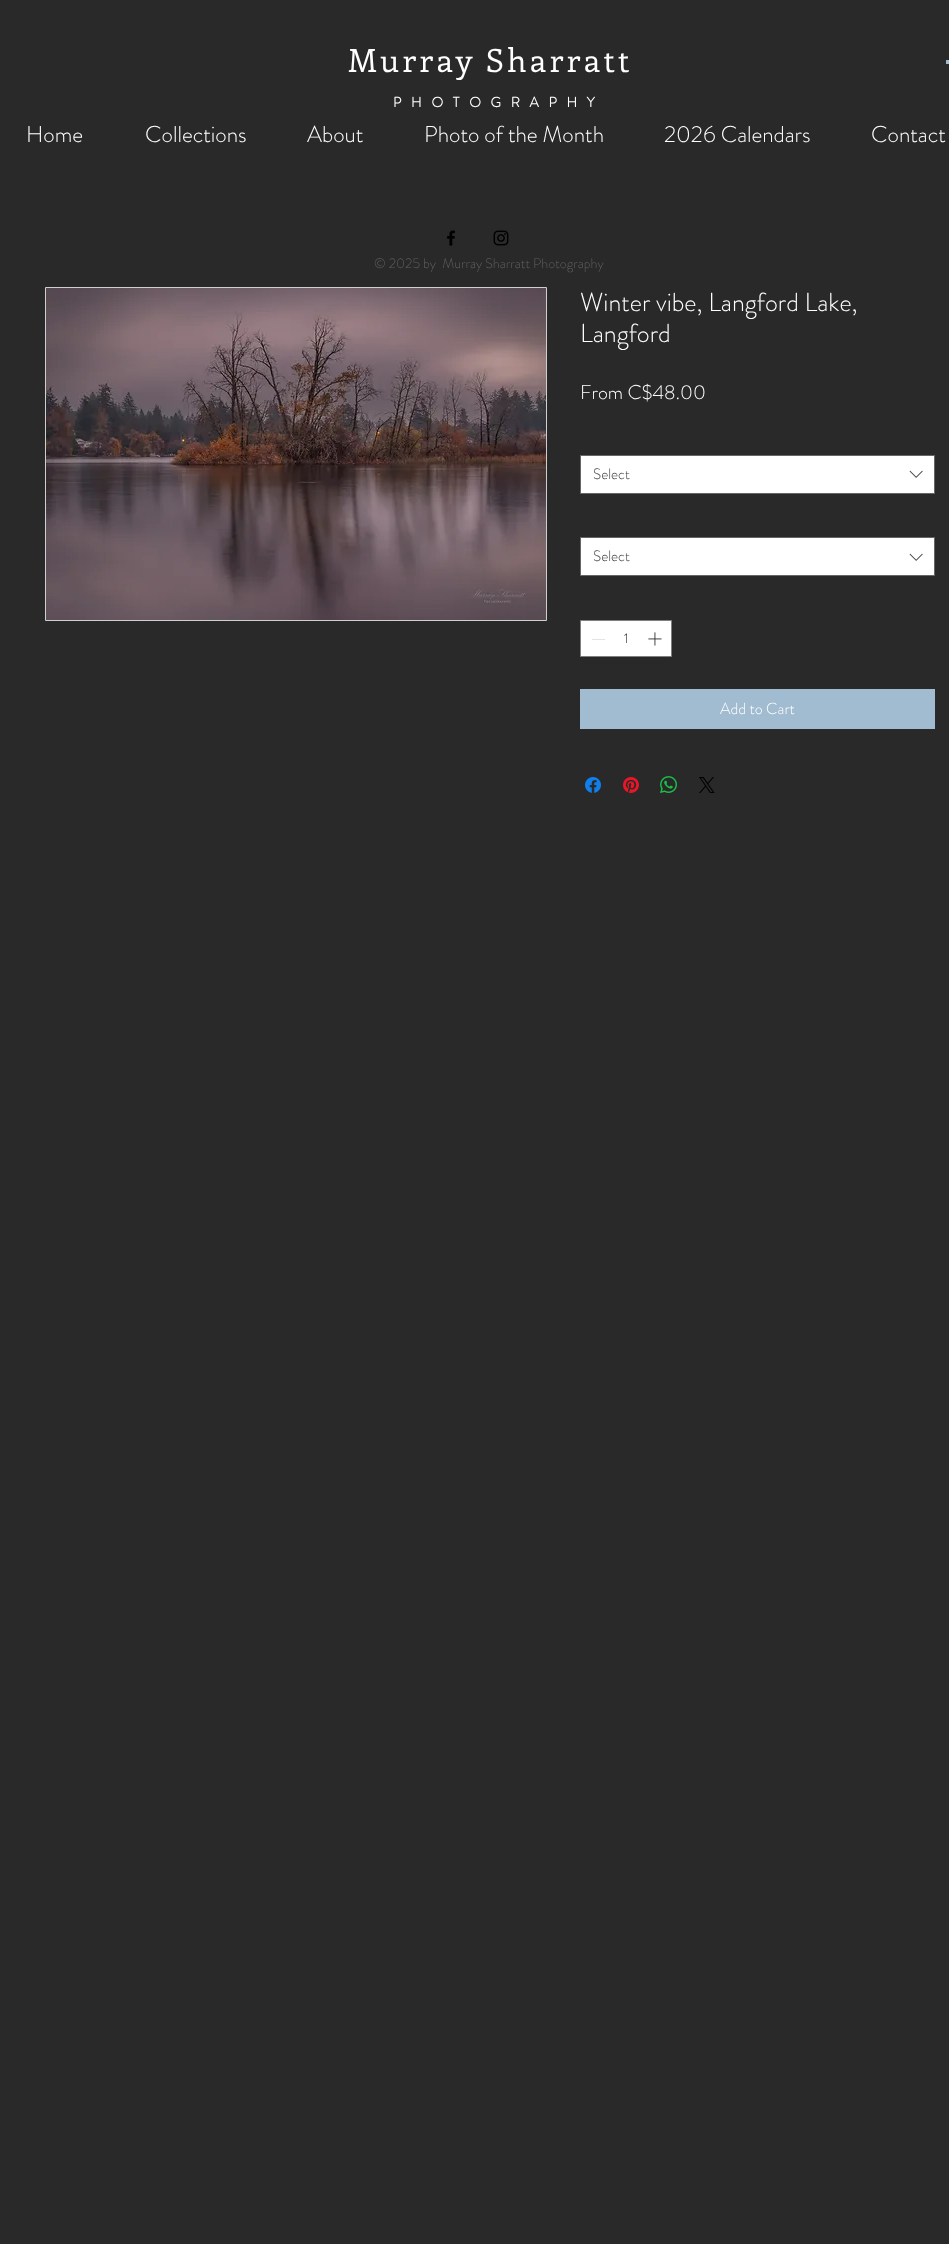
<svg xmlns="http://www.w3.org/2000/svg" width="949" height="2244">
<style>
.a{font:32px Enriqueta;letter-spacing:3.25px;fill:#fff}
.b{font:bold 14px 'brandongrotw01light';letter-spacing:9.75px;fill:#fff}
.c{font:300 23px 'brandongrotw01light';fill:#fff}
.d{font:300 14px 'brandongrotw01light';fill:#605e5e}
.e{font:300 26px 'brandongrotw01light';fill:#fff}
.f{font:300 20px 'brandongrotw01light';fill:#fff}
.g{font:300 15px 'brandongrotw01light';fill:#444}
.h{font:300 14px 'brandongrotw01light';fill:#292929}
.i{font:300 16px 'brandongrotw01light';fill:#fff}
</style>
<rect width="100%" height="100%" fill="#292929"/>
<path fill="#a1bbd1" d="M946 60h3v4H946z"/>
<image href="1.png" x="447" y="230" width="8" height="16"/>
<image href="2.png" x="493" y="230" width="16" height="16"/>
<path fill="none" stroke="#cfcfcf" d="M45.5 287.5h501v333H45.5z"/>
<image href="3.png" x="46" y="288" width="500" height="332"/>
<path fill="#fff" stroke="#666" d="M580.5 455.5h354v38H580.5z"/>
<image href="4.png" x="909" y="470" width="14" height="8"/>
<path fill="#fff" stroke="#666" d="M580.5 537.5h354v38H580.5z"/>
<image href="4.png" x="909" y="553" width="14" height="8"/>
<path fill="#fff" stroke="#7f7f7f" d="M580.5 620.5h91v36H580.5z"/>
<path fill="#e3e3e3" d="M592 639h13v1H592z"/>
<image href="5.png" x="648" y="632" width="14" height="14"/>
<path fill="#a1bbd1" d="M580 689h355v40H580z"/>
<image href="6.png" x="585" y="777" width="16" height="16"/>
<image href="7.png" x="623" y="777" width="16" height="16"/>
<image href="8.png" x="660" y="776" width="17" height="17"/>
<image href="9.png" x="699" y="777" width="16" height="16"/>
<text class="a" x="348" y="72">Murray Sharratt</text>
<text class="b" x="393" y="107">PHOTOGRAPHY</text>
<text class="c" x="26" y="142">Home</text>
<text class="c" x="145" y="142">Collections</text>
<text class="c" x="307" y="142">About</text>
<text class="c" x="424" y="142">Photo of the Month</text>
<text class="c" x="664" y="142">2026 Calendars</text>
<text class="c" x="871" y="142">Contact</text>
<text class="d" xml:space="preserve" x="374" y="268">© 2025 by  Murray Sharratt Photography</text>
<text class="e" x="580" y="311">Winter vibe, Langford Lake,</text>
<text class="e" x="580" y="342">Langford</text>
<text class="f" x="580" y="399">From C$48.00</text>
<text class="g" x="593" y="479">Select</text>
<text class="g" x="593" y="561">Select</text>
<text class="h" x="624" y="643">1</text>
<text class="i" x="720" y="714">Add to Cart</text>
</svg>
